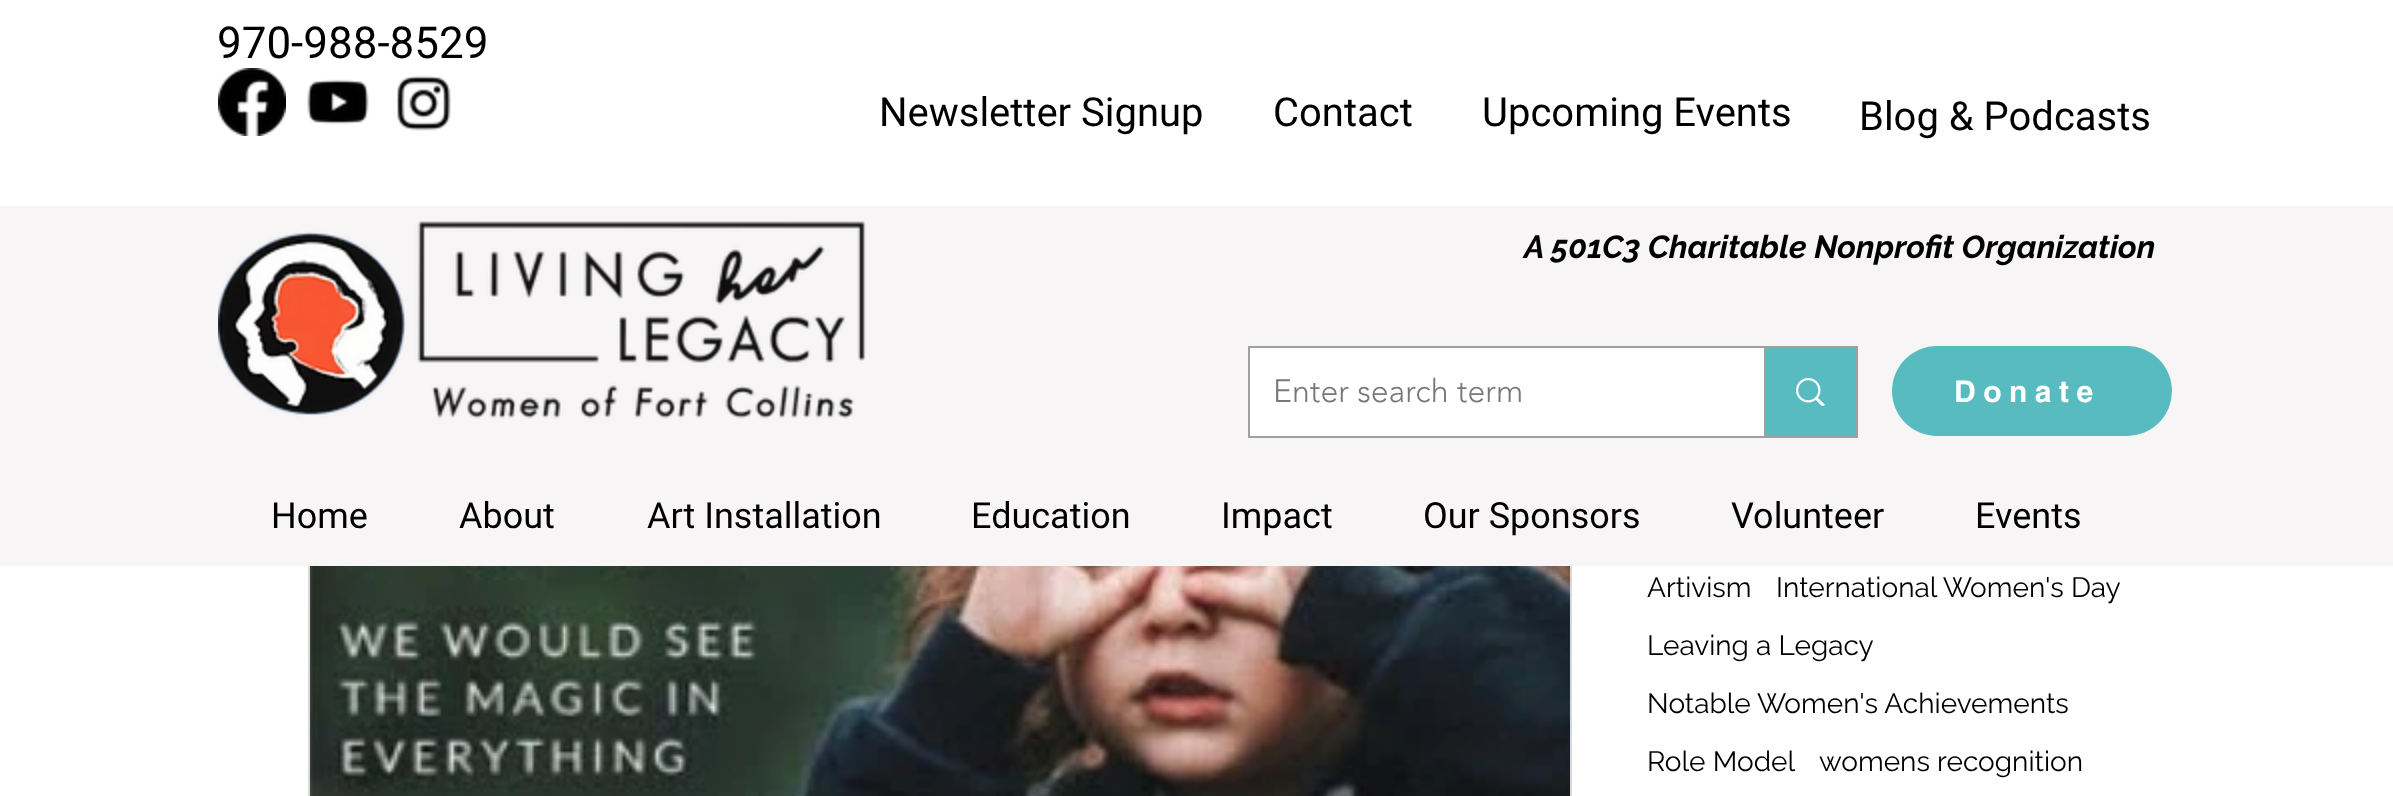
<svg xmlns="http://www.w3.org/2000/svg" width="2393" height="796">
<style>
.a{font:44px Roboto;fill:#000}
.b{font:40px Roboto;fill:#000}
.c{font:italic bold 32px Raleway;fill:#000}
.d{font:300 32px 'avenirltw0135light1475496';fill:#787878}
.e{font:bold 30px helvetica;letter-spacing:7.5px;fill:#fff}
.f{font:36px Roboto;fill:#000}
.g{font:28px Raleway;fill:#000}
</style>
<rect width="100%" height="100%" fill="#fff"/>
<image href="1.png" x="218" y="68" width="68" height="68"/>
<image href="2.png" x="307" y="79" width="62" height="46"/>
<image href="3.png" x="397" y="75" width="54" height="56"/>
<path fill="none" stroke="#d9d9d9" stroke-width="2" d="M309 353h1262v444H309z"/>
<path fill="#f7f5f5" d="M0 206h2393v360H0z"/>
<image href="4.png" x="218" y="221" width="648" height="198"/>
<path fill="none" stroke="#a0a09f" stroke-width="2" d="M1249 347h608v90H1249z"/>
<path fill="#fff" d="M1250 348h514v88H1250z"/>
<path fill="#57bbbf" d="M1766 348h90v88H1766z"/>
<path fill="#a0a09f" d="M1764 348h2v88H1764z"/>
<image href="5.png" x="1796" y="378" width="29" height="28"/>
<rect fill="#57bbbf" x="1892" y="346" width="280" height="90" rx="45"/>
<image href="6.png" x="310" y="566" width="1260" height="230"/>
<text class="a" x="217" y="58">970-988-8529</text>
<text class="b" x="879" y="126">Newsletter Signup</text>
<text class="b" x="1273" y="126">Contact</text>
<text class="b" x="1482" y="126">Upcoming Events</text>
<text class="b" x="1859" y="130">Blog &amp; Podcasts</text>
<text class="c" x="1524" y="258">A 501C3 Charitable Nonprofit Organization</text>
<text class="d" x="1273" y="402">Enter search term</text>
<text class="e" x="1954" y="402">Donate</text>
<text class="f" x="271" y="528">Home</text>
<text class="f" x="459" y="528">About</text>
<text class="f" x="647" y="528">Art Installation</text>
<text class="f" x="971" y="528">Education</text>
<text class="f" x="1221" y="528">Impact</text>
<text class="f" x="1423" y="528">Our Sponsors</text>
<text class="f" x="1731" y="528">Volunteer</text>
<text class="f" x="1975" y="528">Events</text>
<text class="g" x="1647" y="597">Artivism</text>
<text class="g" x="1776" y="597">International Women's Day</text>
<text class="g" x="1647" y="655">Leaving a Legacy</text>
<text class="g" x="1647" y="713">Notable Women's Achievements</text>
<text class="g" x="1647" y="771">Role Model</text>
<text class="g" x="1819" y="771">womens recognition</text>
</svg>
